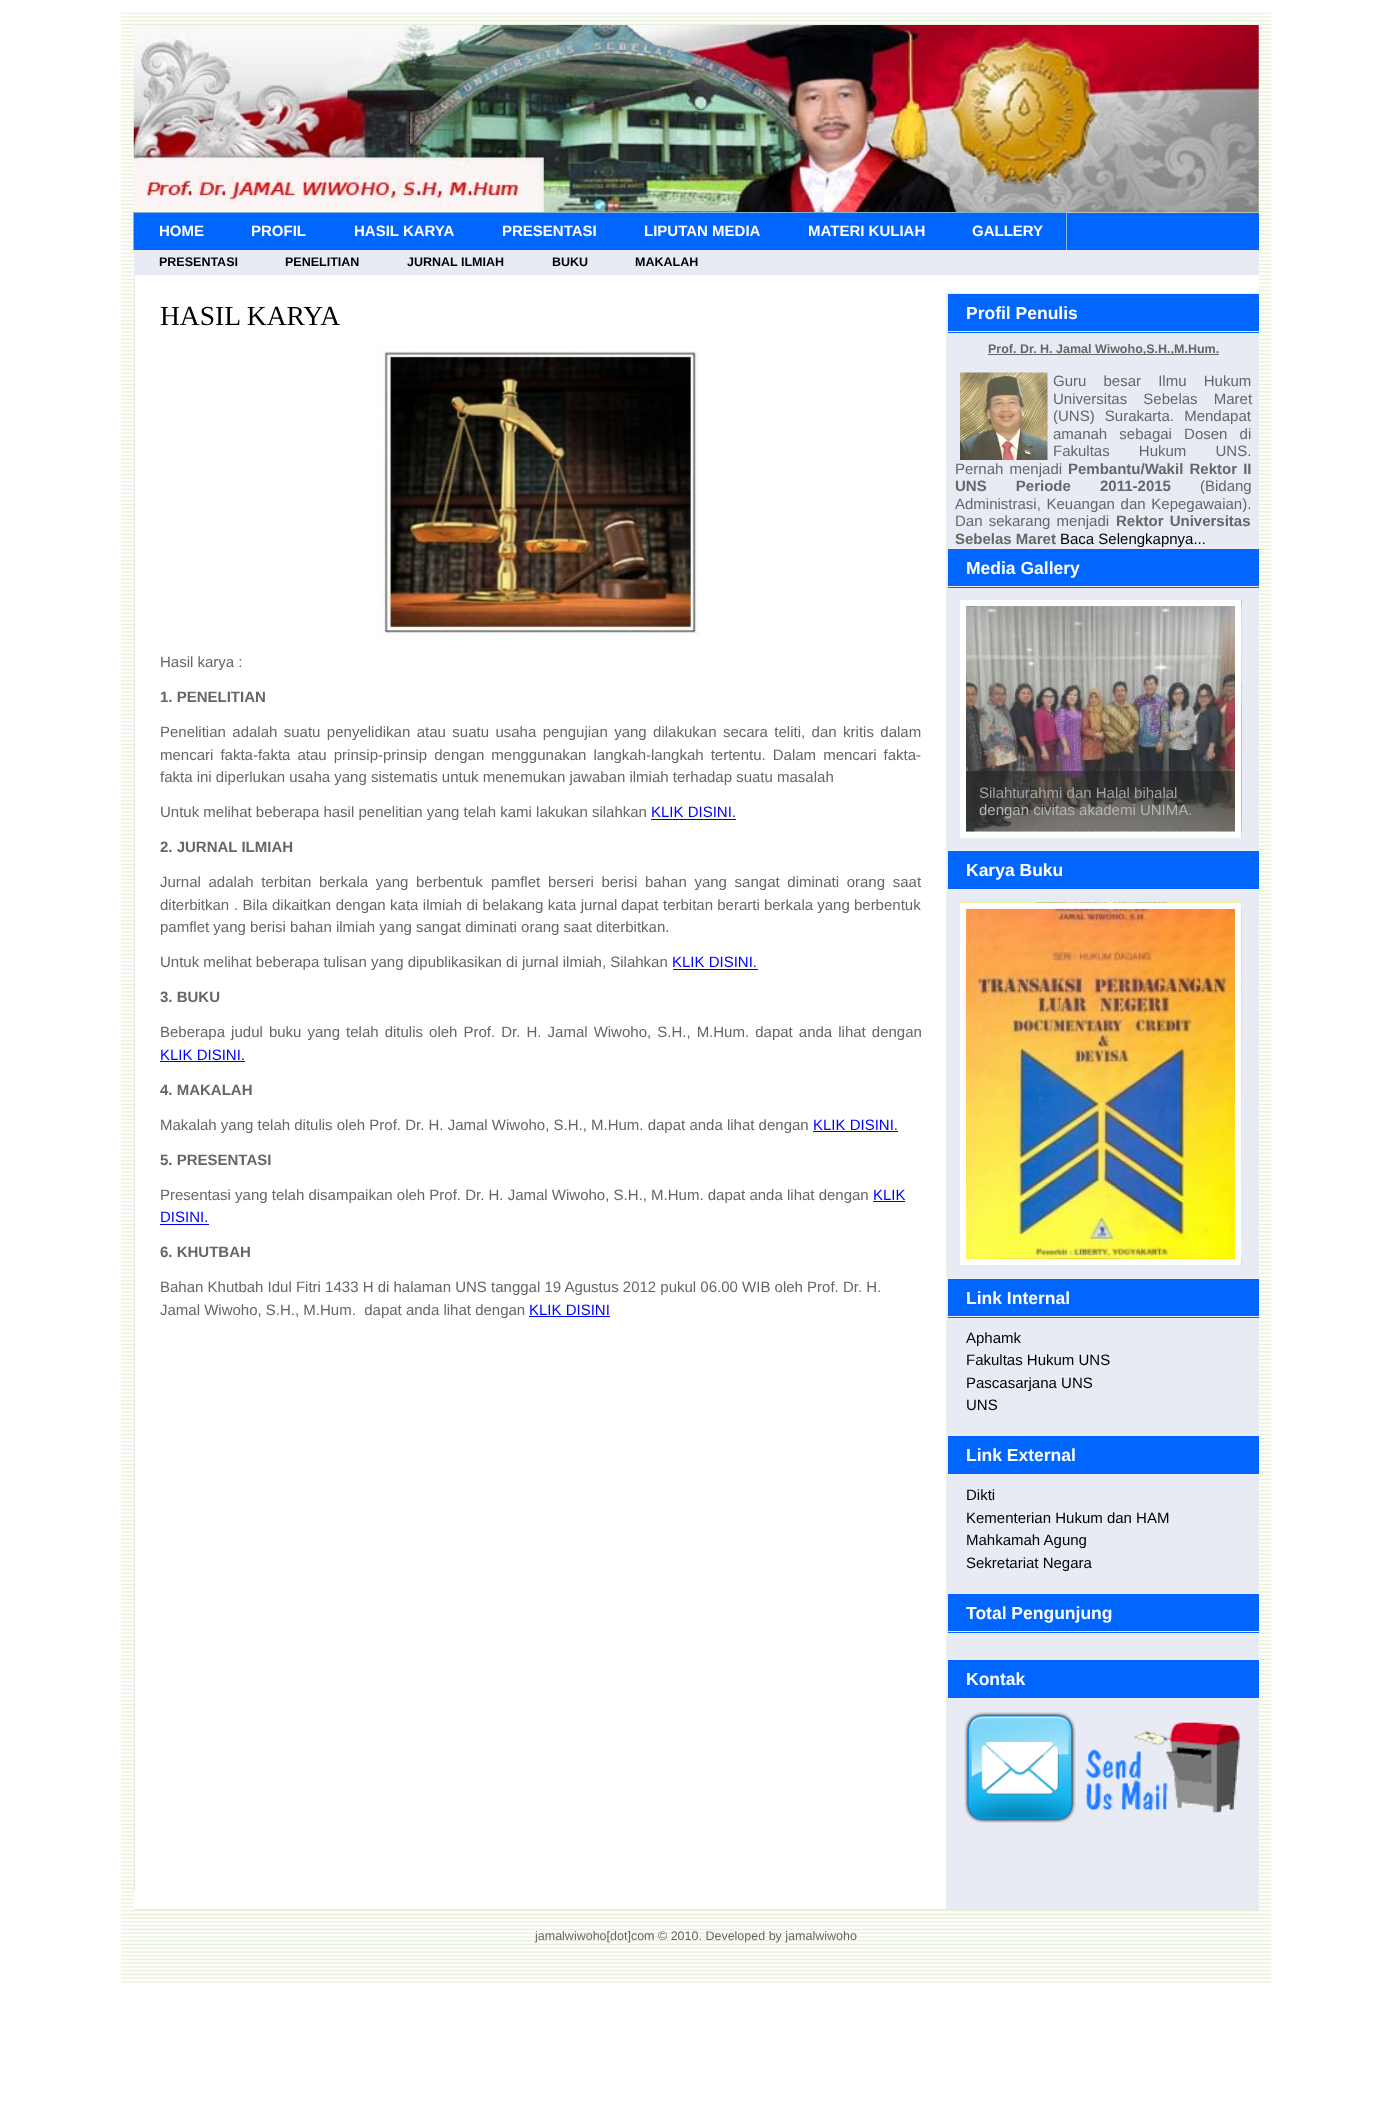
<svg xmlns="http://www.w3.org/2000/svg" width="1392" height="2106">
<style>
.a{font:bold 15px Liberation Sans;fill:#fff}
.b{font:bold 12.5px Liberation Sans;fill:#000}
.c{font:27.5px Liberation Serif;fill:#000}
.d{font:15px Liberation Sans;fill:#666}
.e{font:bold 15px Liberation Sans;fill:#666}
.f{font:15px Liberation Sans;fill:#00f}
.g{font:bold 17.5px Liberation Sans;fill:#fff}
.h{font:bold 12.5px Liberation Sans;fill:#666}
.i{font:15px Liberation Sans;fill:#000}
.j{font:15px Liberation Sans;fill:#a3a2a2}
.k{font:15px Liberation Sans;fill:#b4b4b2}
.l{font:12.5px Liberation Sans;fill:#666}
</style>
<rect width="100%" height="100%" fill="#fff"/>
<image href="1.png" x="121" y="12" width="1151" height="1973"/>
<image href="2.png" x="133" y="25" width="1126" height="188"/>
<path fill="#06f" d="M1067 213h192v37H1067z"/>
<path fill="#88b4cf" d="M133 212h934v38H133z"/>
<path fill="#06f" d="M134 213h932v37H134z"/>
<path fill="#e9ebf4" d="M721 250h538v25H721z"/>
<path fill="#e9ebf4" d="M134 250h587v25H134z"/>
<path fill="#fff" d="M134 275h1125v1633H134z"/>
<path fill="#ece5e5" d="M134 275h1v1616H134z"/>
<image href="3.png" x="377" y="345" width="322" height="292"/>
<path fill="#00f" d="M651 819h85v1H651z"/>
<path fill="#00f" d="M673 969h85v1H673z"/>
<path fill="#00f" d="M160 1061h85v1H160z"/>
<path fill="#00f" d="M813 1131h85v1H813z"/>
<path fill="#00f" d="M873 1201h32v1H873z"/>
<path fill="#00f" d="M160 1224h49v1H160z"/>
<path fill="#00f" d="M529 1316h81v1H529z"/>
<path fill="#e9ebf4" d="M947 293h312v1616H947z"/>
<path fill="#eee" d="M946 293h1v1616H946z"/>
<path fill="#06f" d="M948 294h311v39H948z"/>
<path fill="#eee" d="M948 293h311v1H948z"/>
<path fill="#eee" d="M948 331h311v1H948z"/>
<path fill="#666" d="M988 354h231v1H988z"/>
<image href="4.png" x="960" y="372" width="88" height="88"/>
<path fill="#06f" d="M948 549h311v39H948z"/>
<path fill="#eee" d="M948 548h311v1H948z"/>
<path fill="#eee" d="M948 586h311v1H948z"/>
<image href="5.png" x="966" y="600" width="276" height="238"/>
<path fill="none" stroke="#fff" stroke-width="6" d="M963 603h275v232H963z"/>
<image href="6.png" x="966" y="606" width="39" height="45"/>
<image href="7.png" x="1005" y="606" width="39" height="46"/>
<image href="8.png" x="1044" y="606" width="39" height="45"/>
<image href="9.png" x="1082" y="606" width="39" height="45"/>
<image href="10.png" x="1121" y="606" width="39" height="1"/>
<image href="11.png" x="1160" y="606" width="38" height="40"/>
<image href="12.png" x="1197" y="606" width="38" height="45"/>
<image href="13.png" x="966" y="652" width="36" height="45"/>
<image href="14.png" x="1005" y="651" width="39" height="46"/>
<image href="15.png" x="1043" y="651" width="40" height="46"/>
<image href="16.png" x="1082" y="651" width="40" height="46"/>
<image href="17.png" x="1121" y="681" width="37" height="16"/>
<image href="18.png" x="1160" y="682" width="38" height="15"/>
<image href="19.png" x="1197" y="652" width="38" height="45"/>
<image href="20.png" x="966" y="696" width="39" height="46"/>
<image href="21.png" x="1005" y="696" width="39" height="46"/>
<image href="22.png" x="1043" y="696" width="40" height="46"/>
<image href="23.png" x="1082" y="696" width="40" height="46"/>
<image href="24.png" x="1121" y="696" width="39" height="46"/>
<image href="25.png" x="1160" y="696" width="38" height="46"/>
<image href="26.png" x="1197" y="696" width="38" height="46"/>
<image href="27.png" x="966" y="741" width="39" height="46"/>
<image href="28.png" x="1005" y="741" width="39" height="46"/>
<image href="29.png" x="1043" y="741" width="40" height="45"/>
<image href="30.png" x="1082" y="741" width="40" height="40"/>
<image href="31.png" x="1121" y="741" width="39" height="40"/>
<image href="32.png" x="966" y="786" width="23" height="46"/>
<image href="33.png" x="1005" y="786" width="39" height="34"/>
<image href="34.png" x="1043" y="786" width="33" height="24"/>
<image href="37.png" x="1093" y="792" width="29" height="16"/>
<image href="35.png" x="1121" y="786" width="19" height="13"/>
<image href="38.png" x="1160" y="799" width="38" height="6"/>
<image href="36.png" x="1197" y="787" width="38" height="44"/>
<path fill="#22222287" d="M966 771h269v60H966z"/>
<path fill="#06f" d="M948 851h311v38H948z"/>
<path fill="#eee" d="M948 850h311v1H948z"/>
<path fill="#eee" d="M948 889h311v1H948z"/>
<image href="39.png" x="960" y="902" width="282" height="363"/>
<path fill="none" stroke="#fff" stroke-width="6" d="M963 906h275v356H963z"/>
<image href="40.png" x="966" y="908" width="39" height="71"/>
<image href="41.png" x="1005" y="908" width="39" height="71"/>
<image href="42.png" x="1044" y="908" width="39" height="71"/>
<image href="43.png" x="1082" y="908" width="40" height="71"/>
<image href="44.png" x="1121" y="908" width="39" height="71"/>
<image href="45.png" x="1160" y="908" width="38" height="71"/>
<image href="46.png" x="1197" y="908" width="38" height="71"/>
<image href="47.png" x="966" y="978" width="37" height="71"/>
<image href="48.png" x="1005" y="978" width="39" height="71"/>
<image href="49.png" x="1043" y="978" width="40" height="71"/>
<image href="50.png" x="1082" y="978" width="40" height="71"/>
<image href="51.png" x="1121" y="978" width="38" height="59"/>
<image href="52.png" x="1160" y="978" width="38" height="71"/>
<image href="53.png" x="1197" y="978" width="29" height="12"/>
<image href="54.png" x="966" y="1049" width="1" height="70"/>
<image href="55.png" x="1021" y="1048" width="23" height="20"/>
<image href="56.png" x="1043" y="1048" width="40" height="71"/>
<image href="57.png" x="1082" y="1048" width="40" height="71"/>
<image href="58.png" x="1121" y="1049" width="36" height="70"/>
<image href="59.png" x="1160" y="1048" width="23" height="20"/>
<image href="60.png" x="966" y="1119" width="1" height="70"/>
<image href="61.png" x="1022" y="1140" width="22" height="49"/>
<image href="62.png" x="1043" y="1118" width="40" height="71"/>
<image href="63.png" x="1082" y="1118" width="40" height="71"/>
<image href="64.png" x="1121" y="1118" width="39" height="71"/>
<image href="65.png" x="1160" y="1140" width="20" height="49"/>
<image href="66.png" x="966" y="1189" width="39" height="70"/>
<image href="67.png" x="1121" y="1188" width="39" height="71"/>
<image href="68.png" x="1160" y="1188" width="38" height="71"/>
<image href="69.png" x="1197" y="1189" width="38" height="70"/>
<path fill="#06f" d="M948 1279h311v39H948z"/>
<path fill="#eee" d="M948 1278h311v1H948z"/>
<path fill="#eee" d="M948 1316h311v1H948z"/>
<path fill="#06f" d="M948 1436h311v38H948z"/>
<path fill="#eee" d="M948 1435h311v1H948z"/>
<path fill="#eee" d="M948 1474h311v1H948z"/>
<path fill="#06f" d="M948 1594h311v39H948z"/>
<path fill="#eee" d="M948 1593h311v1H948z"/>
<path fill="#eee" d="M948 1631h311v1H948z"/>
<path fill="#06f" d="M948 1660h311v38H948z"/>
<path fill="#eee" d="M948 1659h311v1H948z"/>
<path fill="#eee" d="M948 1698h311v1H948z"/>
<image href="70.png" x="964" y="1712" width="112" height="111"/>
<image href="71.png" x="1085" y="1721" width="155" height="92"/>
<path fill="#ece5e5" d="M134 1909h1125v1H134z"/>
<text class="a" x="159" y="236">HOME</text>
<text class="a" x="251" y="236">PROFIL</text>
<text class="a" x="354" y="236">HASIL KARYA</text>
<text class="a" x="502" y="236">PRESENTASI</text>
<text class="a" x="644" y="236">LIPUTAN MEDIA</text>
<text class="a" x="808" y="236">MATERI KULIAH</text>
<text class="a" x="972" y="236">GALLERY</text>
<text class="b" x="159" y="266">PRESENTASI</text>
<text class="b" x="285" y="266">PENELITIAN</text>
<text class="b" x="407" y="266">JURNAL ILMIAH</text>
<text class="b" x="552" y="266">BUKU</text>
<text class="b" x="635" y="266">MAKALAH</text>
<text class="c" x="160" y="325">HASIL KARYA</text>
<text class="d" x="160" y="667">Hasil karya :</text>
<text class="e" x="160" y="702">1. PENELITIAN</text>
<text class="d" x="160" y="737" word-spacing="2.25">Penelitian adalah suatu penyelidikan atau suatu usaha pengujian yang dilakukan secara teliti, dan kritis dalam</text>
<text class="d" x="160" y="760" word-spacing="2.9">mencari fakta-fakta atau prinsip-prinsip dengan menggunakan langkah-langkah tertentu. Dalam mencari fakta-</text>
<text class="d" x="160" y="782">fakta ini diperlukan usaha yang sistematis untuk menemukan jawaban ilmiah terhadap suatu masalah</text>
<text class="d" x="160" y="817">Untuk melihat beberapa hasil penelitian yang telah kami lakukan silahkan</text>
<text class="f" x="651" y="817">KLIK DISINI.</text>
<text class="e" x="160" y="852">2. JURNAL ILMIAH</text>
<text class="d" x="160" y="887" word-spacing="3.5">Jurnal adalah terbitan berkala yang berbentuk</text>
<text class="d" x="491" y="887">pamflet</text>
<text class="d" x="548" y="887" word-spacing="3.5">berseri berisi bahan yang sangat diminati orang saat</text>
<text class="d" x="160" y="910">diterbitkan</text>
<text class="d" x="234" y="910" word-spacing="0.25">. Bila dikaitkan dengan kata ilmiah di belakang kata jurnal</text>
<text class="d" x="621" y="910">dapat</text>
<text class="d" x="663" y="910">terbitan berarti berkala yang berbentuk</text>
<text class="d" x="160" y="932">pamflet yang berisi bahan ilmiah yang sangat diminati orang saat diterbitkan.</text>
<text class="d" x="160" y="967">Untuk melihat beberapa tulisan yang dipublikasikan di jurnal ilmiah, Silahkan</text>
<text class="f" x="672" y="967">KLIK DISINI.</text>
<text class="e" x="160" y="1002">3. BUKU</text>
<text class="d" x="160" y="1037" word-spacing="1.9">Beberapa judul buku yang telah ditulis oleh Prof. Dr. H. Jamal Wiwoho, S.H., M.Hum. dapat anda lihat dengan</text>
<text class="f" x="160" y="1060">KLIK DISINI.</text>
<text class="e" x="160" y="1095">4. MAKALAH</text>
<text class="d" x="160" y="1130">Makalah yang telah ditulis oleh Prof. Dr. H. Jamal Wiwoho, S.H., M.Hum. dapat anda lihat dengan</text>
<text class="f" x="813" y="1130">KLIK DISINI.</text>
<text class="e" x="160" y="1165">5. PRESENTASI</text>
<text class="d" x="160" y="1200">Presentasi yang telah disampaikan oleh Prof. Dr. H. Jamal Wiwoho, S.H., M.Hum. dapat anda lihat dengan</text>
<text class="f" x="873" y="1200">KLIK</text>
<text class="f" x="160" y="1222">DISINI.</text>
<text class="e" x="160" y="1257">6. KHUTBAH</text>
<text class="d" x="160" y="1292">Bahan Khutbah Idul Fitri 1433 H di halaman UNS tanggal 19 Agustus 2012 pukul 06.00 WIB oleh Prof. Dr. H.</text>
<text class="d" xml:space="preserve" x="160" y="1315">Jamal Wiwoho, S.H., M.Hum.  dapat anda lihat dengan</text>
<text class="f" x="529" y="1315">KLIK DISINI</text>
<text class="g" x="966" y="319">Profil Penulis</text>
<text class="h" x="988" y="353">Prof. Dr. H. Jamal Wiwoho,S.H.,M.Hum.</text>
<text class="d" x="1053" y="386" word-spacing="13">Guru besar Ilmu Hukum</text>
<text class="d" x="1053" y="404" word-spacing="12">Universitas Sebelas Maret</text>
<text class="d" x="1053" y="421" word-spacing="6">(UNS) Surakarta. Mendapat</text>
<text class="d" x="1053" y="439" word-spacing="8">amanah sebagai Dosen di</text>
<text class="d" x="1053" y="456" word-spacing="25">Fakultas Hukum UNS.</text>
<text class="d" x="955" y="474" word-spacing="2">Pernah menjadi</text>
<text class="e" x="1068" y="474" word-spacing="2">Pembantu/Wakil Rektor II</text>
<text class="e" x="955" y="491" word-spacing="25">UNS Periode 2011-2015</text>
<text class="d" x="1200" y="491">(Bidang</text>
<text class="d" x="955" y="509" word-spacing="1.5">Administrasi, Keuangan dan Kepegawaian).</text>
<text class="d" x="955" y="526" word-spacing="2">Dan sekarang menjadi</text>
<text class="e" x="1116" y="526" word-spacing="2">Rektor Universitas</text>
<text class="e" x="955" y="544">Sebelas Maret</text>
<text class="i" x="1060" y="544">Baca Selengkapnya...</text>
<text class="g" x="966" y="574">Media Gallery</text>
<text class="j" x="979" y="798">Silahturahmi dan Halal bihalal</text>
<text class="k" x="979" y="815">dengan civitas akademi UNIMA.</text>
<text class="g" x="966" y="876">Karya Buku</text>
<text class="g" x="966" y="1304">Link Internal</text>
<text class="i" x="966" y="1343">Aphamk</text>
<text class="i" x="966" y="1365">Fakultas Hukum UNS</text>
<text class="i" x="966" y="1388">Pascasarjana UNS</text>
<text class="i" x="966" y="1410">UNS</text>
<text class="g" x="966" y="1461">Link External</text>
<text class="i" x="966" y="1500">Dikti</text>
<text class="i" x="966" y="1523">Kementerian Hukum dan HAM</text>
<text class="i" x="966" y="1545">Mahkamah Agung</text>
<text class="i" x="966" y="1568">Sekretariat Negara</text>
<text class="g" x="966" y="1619">Total Pengunjung</text>
<text class="g" x="966" y="1685">Kontak</text>
<text class="l" x="535" y="1940">jamalwiwoho[dot]com © 2010. Developed by jamalwiwoho</text>
</svg>
